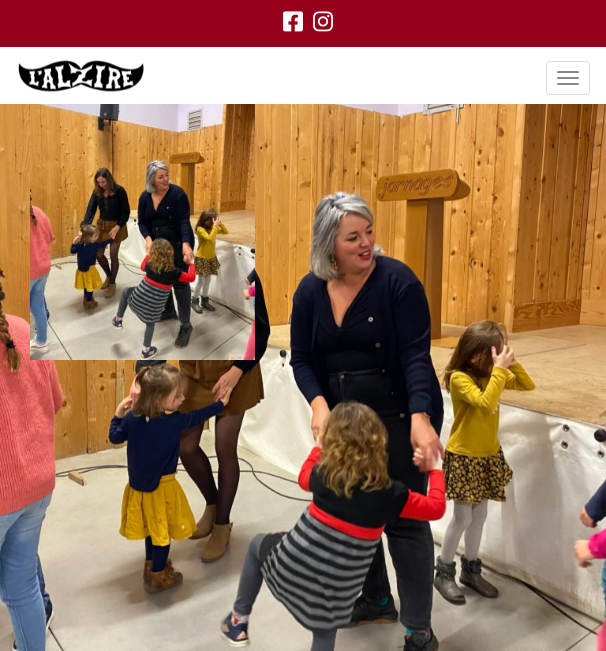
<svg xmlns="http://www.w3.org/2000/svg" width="606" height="651">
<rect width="100%" height="100%" fill="#fff"/>
<path fill="#960018" d="M0 0h606v47H0z"/>
<image href="1.png" x="283" y="11" width="20" height="21"/>
<image href="2.png" x="313" y="11" width="20" height="21"/>
<image href="3.png" x="18" y="60" width="126" height="32"/>
<rect fill="none" stroke="#ddd" x="546.5" y="61.5" width="43" height="33" rx="3.5"/>
<rect fill="#888" x="557" y="71" width="22" height="2" rx="1"/>
<rect fill="#888" x="557" y="77" width="22" height="2" rx="1"/>
<rect fill="#888" x="557" y="83" width="22" height="2" rx="1"/>
<image href="4.png" x="0" y="104" width="606" height="547"/>
<image href="5.png" x="30" y="104" width="225" height="256"/>
</svg>
